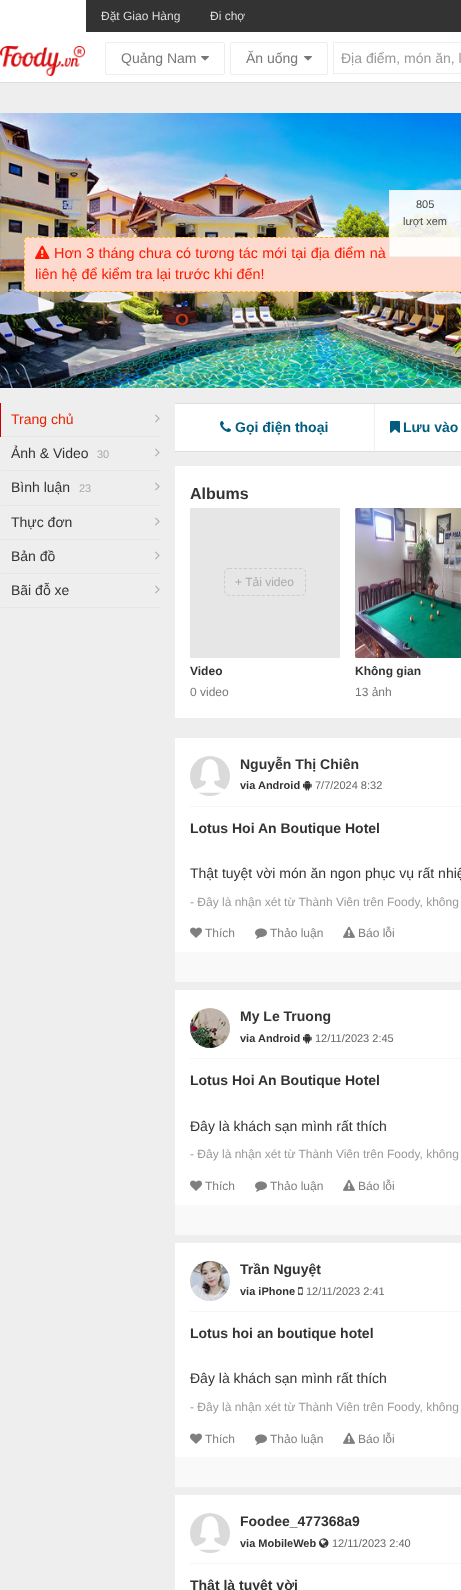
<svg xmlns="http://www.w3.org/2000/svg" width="461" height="1590">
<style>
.a{font:12px Liberation Sans;fill:#ddd}
.b{font:14px Liberation Sans;fill:#777}
.c{font:14px Liberation Sans;fill:#999}
.d{font:11px Liberation Sans;fill:#464747}
.e{font:14.4px Liberation Sans;fill:#fe1900}
.f{font:14px Liberation Sans;fill:#e52402}
.g{font:14px Liberation Sans;fill:#333}
.h{font:11px Liberation Sans;fill:#aaa}
.i{font:bold 14px Liberation Sans;fill:#005d80}
.j{font:bold 16px Liberation Sans;fill:#333}
.k{font:12px Liberation Sans;fill:#aaa}
.l{font:bold 12px Liberation Sans;fill:#333}
.m{font:12px Liberation Sans;fill:#777}
.n{font:bold 14px Liberation Sans;fill:#333}
.o{font:bold 11px Liberation Sans;fill:#333}
.p{font:11px Liberation Sans;fill:#666}
.q{font:12px Liberation Sans;fill:#999}
.r{font:12px Liberation Sans;fill:#7f7f7f}
</style>
<rect width="100%" height="100%" fill="#eee"/>
<path fill="#333" d="M86 0h375v32H86z"/>
<path fill="#fff" d="M0 0h86v32H0z"/>
<path fill="#fff" d="M0 32h461v50H0z"/>
<path fill="#ddd" d="M0 82h461v1H0z"/>
<image href="1.png" x="0" y="46" width="85" height="30"/>
<rect fill="none" stroke="#eee" x="105.5" y="42.5" width="119" height="32" rx="1.5"/>
<image href="2.png" x="201" y="56" width="8" height="5"/>
<rect fill="none" stroke="#eee" x="230.5" y="42.5" width="97" height="32" rx="1.5"/>
<image href="2.png" x="304" y="56" width="8" height="5"/>
<path fill="#eee" d="M333 42h128v1H333z"/>
<path fill="#eee" d="M333 73h128v1H333z"/>
<path fill="#eee" d="M333 42h1v32H333z"/>
<image href="3.png" x="0" y="113" width="461" height="275"/>
<path fill="#fed9cd" d="M24 237h437v55H24z"/>
<path fill="none" stroke="#fab319" stroke-dasharray="3 2.02" d="M24 237.5h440"/>
<path fill="#ffffffe6" d="M389 190h72v67H389z"/>
<path fill="none" stroke="#eeeeeee6" d="M389.5 190.5h71v66H389.5z"/>
<path fill="none" stroke="#fab319" stroke-dasharray="3 2.02" d="M24 291.5h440"/>
<path fill="none" stroke="#fab319" stroke-dasharray="3 2.2" d="M24.5 237v55"/>
<image href="4.png" x="35" y="245" width="15" height="14"/>
<path fill="#e6e6e6" d="M0 436h160v1H0z"/>
<path fill="#c00" d="M0 403h1v34H0z"/>
<image href="5.png" x="155" y="414" width="5" height="9"/>
<path fill="#e6e6e6" d="M0 470h160v1H0z"/>
<path fill="#eee" d="M0 470h1v1H0z"/>
<image href="5.png" x="155" y="448" width="5" height="9"/>
<path fill="#e6e6e6" d="M0 505h160v1H0z"/>
<path fill="#eee" d="M0 505h1v1H0z"/>
<image href="5.png" x="155" y="482" width="5" height="9"/>
<path fill="#e6e6e6" d="M0 539h160v1H0z"/>
<path fill="#eee" d="M0 539h1v1H0z"/>
<image href="5.png" x="155" y="517" width="5" height="9"/>
<path fill="#e6e6e6" d="M0 573h160v1H0z"/>
<path fill="#eee" d="M0 573h1v1H0z"/>
<image href="5.png" x="155" y="551" width="5" height="9"/>
<path fill="#e6e6e6" d="M0 607h160v1H0z"/>
<path fill="#eee" d="M0 607h1v1H0z"/>
<image href="5.png" x="155" y="585" width="5" height="9"/>
<path fill="#fff" d="M175 404h286v47H175z"/>
<path fill="#ddd" d="M175 403h286v1H175z"/>
<path fill="#ddd" d="M175 451h286v1H175z"/>
<path fill="#f0f0f0" d="M374 404h1v47H374z"/>
<image href="6.png" x="220" y="421" width="11" height="11"/>
<image href="7.png" x="390" y="421" width="10" height="12"/>
<path fill="#fff" d="M175 466h286v252H175z"/>
<path fill="#e6e6e6" d="M190 508h150v150H190z"/>
<path fill="none" stroke="#ccc" stroke-dasharray="3 2" d="M229 568.5h72c2.5 0 4.5 2 4.5 4.5v18c0 2.5-2 4.5-4.5 4.5h-72c-2.5 0-4.5-2-4.5-4.5v-18c0-2.5 2-4.5 4.5-4.5z"/>
<path fill="#e6e6e6" d="M355 508h2v150H355z"/>
<image href="8.png" x="355" y="508" width="106" height="150"/>
<path fill="#fff" d="M175 738h286v214H175z"/>
<path fill="#f6f6f6" d="M190 806h271v1H190z"/>
<image href="9.png" x="190" y="756" width="40" height="40"/>
<image href="10.png" x="303" y="780" width="9" height="11"/>
<image href="11.png" x="190" y="927" width="12" height="11"/>
<image href="12.png" x="255" y="928" width="12" height="11"/>
<image href="13.png" x="343" y="926" width="12" height="12"/>
<path fill="#f9f9f9" d="M175 952h286v30H175z"/>
<path fill="#fff" d="M175 990h286v215H175z"/>
<path fill="#f6f6f6" d="M190 1058h271v1H190z"/>
<image href="14.png" x="190" y="1008" width="40" height="40"/>
<image href="10.png" x="303" y="1033" width="9" height="11"/>
<image href="11.png" x="190" y="1180" width="12" height="11"/>
<image href="12.png" x="255" y="1181" width="12" height="11"/>
<image href="13.png" x="343" y="1179" width="12" height="12"/>
<path fill="#f9f9f9" d="M175 1205h286v30H175z"/>
<path fill="#fff" d="M175 1243h286v214H175z"/>
<path fill="#f6f6f6" d="M190 1311h271v1H190z"/>
<image href="15.png" x="190" y="1261" width="40" height="40"/>
<image href="16.png" x="298" y="1287" width="5" height="8"/>
<image href="11.png" x="190" y="1433" width="12" height="11"/>
<image href="12.png" x="255" y="1434" width="12" height="11"/>
<image href="13.png" x="343" y="1432" width="12" height="12"/>
<path fill="#f9f9f9" d="M175 1457h286v30H175z"/>
<path fill="#fff" d="M175 1495h286v95H175z"/>
<path fill="#f6f6f6" d="M190 1563h271v1H190z"/>
<image href="17.png" x="190" y="1513" width="40" height="40"/>
<image href="18.png" x="319" y="1538" width="10" height="10"/>
<text class="a" x="101" y="20">Đặt Giao Hàng</text>
<text class="a" x="210" y="20">Đi chợ</text>
<text class="b" x="121" y="63">Quảng Nam</text>
<text class="b" x="246" y="63">Ăn uống</text>
<text class="c" x="341" y="63">Địa điểm, món ăn, l</text>
<text class="d" x="416" y="208">805</text>
<text class="d" x="403" y="225">lượt xem</text>
<text class="e" x="54" y="258" word-spacing="0.3">Hơn 3 tháng chưa có tương tác mới tại địa điểm nà</text>
<text class="e" x="35" y="279">liên hệ để kiểm tra lại trước khi đến!</text>
<text class="f" x="11" y="424">Trang chủ</text>
<text class="g" x="11" y="458">Ảnh &amp; Video</text>
<text class="h" x="97" y="458">30</text>
<text class="g" x="11" y="492">Bình luận</text>
<text class="h" x="79" y="492">23</text>
<text class="g" x="11" y="527">Thực đơn</text>
<text class="g" x="11" y="561">Bản đồ</text>
<text class="g" x="11" y="595">Bãi đỗ xe</text>
<text class="i" x="235" y="432">Gọi điện thoại</text>
<text class="i" x="403" y="432">Lưu vào</text>
<text class="j" x="190" y="499">Albums</text>
<text class="k" x="235" y="586">+ Tải video</text>
<text class="l" x="190" y="675">Video</text>
<text class="m" x="190" y="696">0 video</text>
<text class="l" x="355" y="675">Không gian</text>
<text class="m" x="355" y="696">13 ảnh</text>
<text class="n" x="240" y="769">Nguyễn Thị Chiên</text>
<text class="o" x="240" y="789">via Android</text>
<text class="p" x="315" y="789">7/7/2024 8:32</text>
<text class="n" x="190" y="833">Lotus Hoi An Boutique Hotel</text>
<text class="g" x="190" y="878">Thật tuyệt vời món ăn ngon phục vụ rất nhiệ</text>
<text class="q" x="190" y="906">- Đây là nhận xét từ Thành Viên trên Foody, không</text>
<text class="r" x="205" y="937">Thích</text>
<text class="r" x="270" y="937">Thảo luận</text>
<text class="r" x="358" y="937">Báo lỗi</text>
<text class="n" x="240" y="1021">My Le Truong</text>
<text class="o" x="240" y="1042">via Android</text>
<text class="p" x="315" y="1042">12/11/2023 2:45</text>
<text class="n" x="190" y="1085">Lotus Hoi An Boutique Hotel</text>
<text class="g" x="190" y="1131">Đây là khách sạn mình rất thích</text>
<text class="q" x="190" y="1158">- Đây là nhận xét từ Thành Viên trên Foody, không</text>
<text class="r" x="205" y="1190">Thích</text>
<text class="r" x="270" y="1190">Thảo luận</text>
<text class="r" x="358" y="1190">Báo lỗi</text>
<text class="n" x="240" y="1274">Trần Nguyệt</text>
<text class="o" x="240" y="1295">via iPhone</text>
<text class="p" x="306" y="1295">12/11/2023 2:41</text>
<text class="n" x="190" y="1338">Lotus hoi an boutique hotel</text>
<text class="g" x="190" y="1383">Đây là khách sạn mình rất thích</text>
<text class="q" x="190" y="1411">- Đây là nhận xét từ Thành Viên trên Foody, không</text>
<text class="r" x="205" y="1443">Thích</text>
<text class="r" x="270" y="1443">Thảo luận</text>
<text class="r" x="358" y="1443">Báo lỗi</text>
<text class="n" x="240" y="1526">Foodee_477368a9</text>
<text class="o" x="240" y="1547">via MobileWeb</text>
<text class="p" x="332" y="1547">12/11/2023 2:40</text>
<text class="n" x="190" y="1590">Thật là tuyệt vời</text>
</svg>
